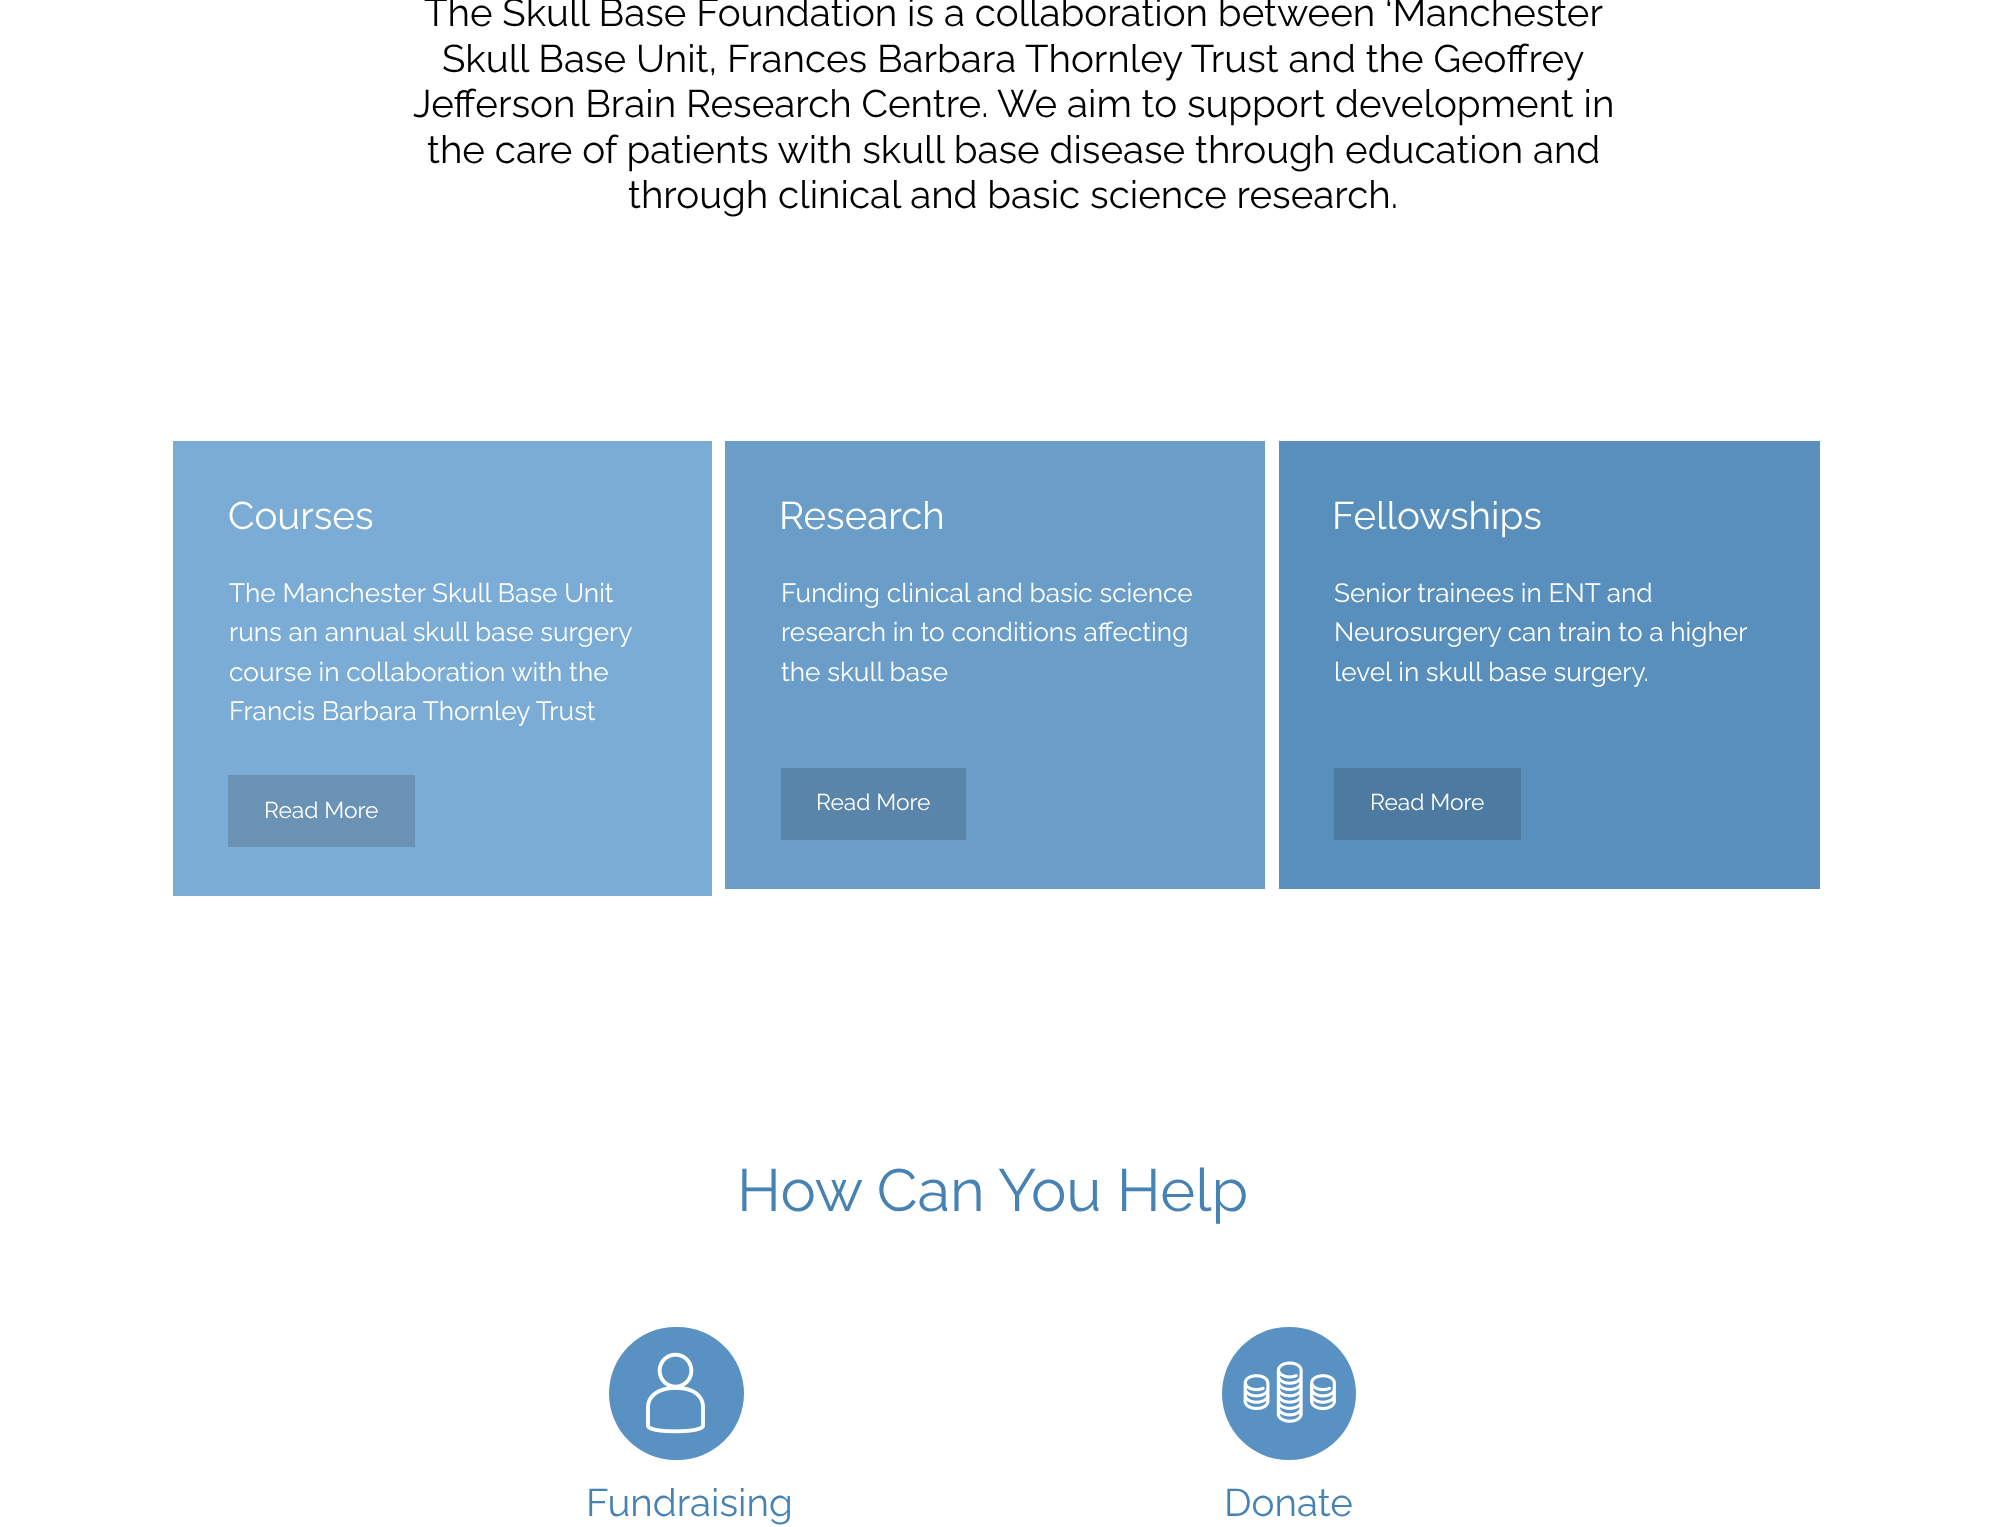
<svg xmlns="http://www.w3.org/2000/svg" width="1991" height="1527">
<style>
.a{font:38.5px Raleway;fill:#000}
.b{font:38.5px Raleway;fill:#fff}
.c{font:26.25px Raleway;fill:#fff}
.d{font:22.75px Raleway;fill:#fff}
.e{font:59.5px Raleway;fill:#4682b4}
.f{font:38.5px Raleway;fill:#4682b4}
</style>
<rect width="100%" height="100%" fill="#fff"/>
<path fill="#7bacd5" d="M173 441h539v455H173z"/>
<path fill="#6992b5" d="M228 775h187v72H228z"/>
<path fill="#6a9dc8" d="M725 441h540v448H725z"/>
<path fill="#5a85aa" d="M781 768h185v72H781z"/>
<path fill="#598fbc" d="M1279 441h541v448H1279z"/>
<path fill="#4c7aa0" d="M1334 768h187v72H1334z"/>
<rect fill="#5992c2" x="609" y="1327" width="135" height="133" rx="66.5"/>
<image href="1.png" x="646" y="1352" width="59" height="82"/>
<rect fill="#5992c2" x="1222" y="1327" width="134" height="133" rx="66.5"/>
<image href="2.png" x="1243" y="1361" width="93" height="62"/>
<text class="a" x="424" y="26">The Skull Base Foundation is a collaboration between ‘Manchester</text>
<text class="a" x="442" y="72">Skull Base Unit, Frances Barbara Thornley Trust and the Geoffrey</text>
<text class="a" x="413" y="117">Jefferson Brain Research Centre. We aim to support development in</text>
<text class="a" x="427" y="163">the care of patients with skull base disease through education and</text>
<text class="a" x="628" y="208">through clinical and basic science research.</text>
<text class="b" x="228" y="529">Courses</text>
<text class="c" x="229" y="602">The Manchester Skull Base Unit</text>
<text class="c" x="229" y="641">runs an annual skull base surgery</text>
<text class="c" x="229" y="681">course in collaboration with the</text>
<text class="c" x="229" y="720">Francis Barbara Thornley Trust</text>
<text class="d" x="264" y="818">Read More</text>
<text class="b" x="779" y="529">Research</text>
<text class="c" x="781" y="602">Funding clinical and basic science</text>
<text class="c" x="781" y="641">research in to conditions affecting</text>
<text class="c" x="781" y="681">the skull base</text>
<text class="d" x="816" y="810">Read More</text>
<text class="b" x="1332" y="529">Fellowships</text>
<text class="c" x="1334" y="602">Senior trainees in ENT and</text>
<text class="c" x="1334" y="641">Neurosurgery can train to a higher</text>
<text class="c" x="1334" y="681">level in skull base surgery.</text>
<text class="d" x="1370" y="810">Read More</text>
<text class="e" x="737" y="1211">How Can You Help</text>
<text class="f" x="586" y="1516">Fundraising</text>
<text class="f" x="1224" y="1516">Donate</text>
</svg>
